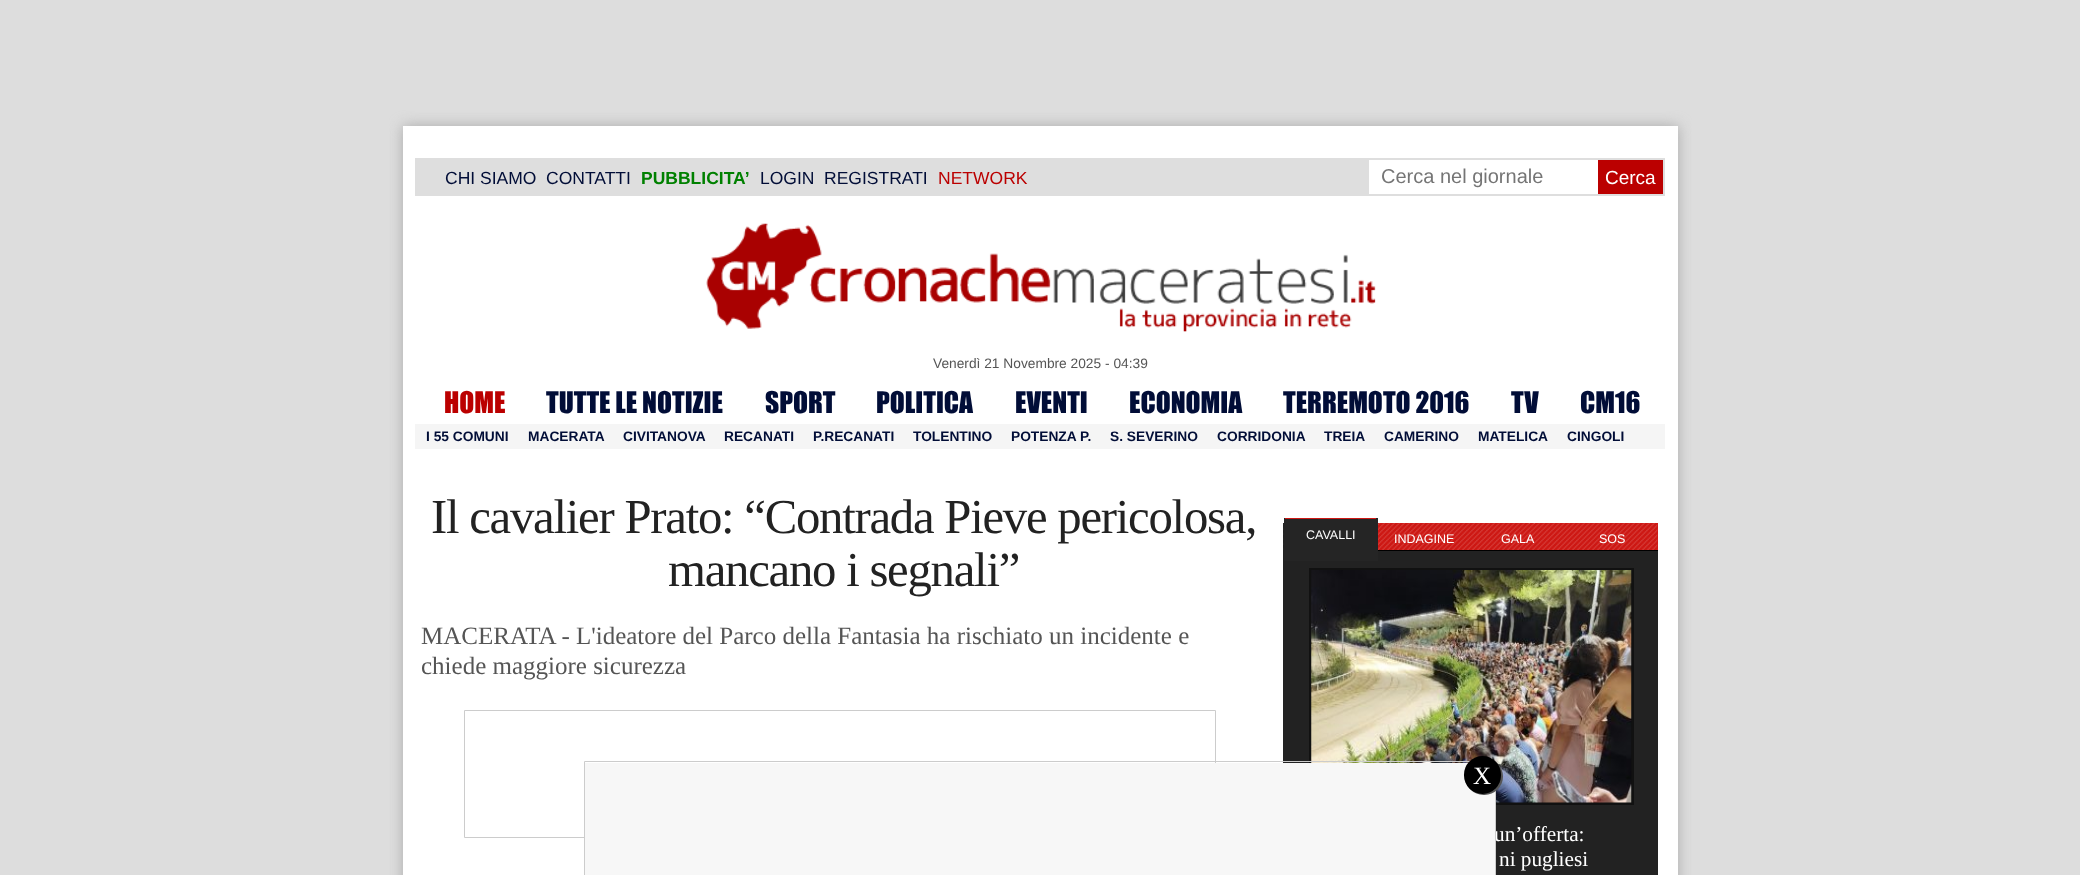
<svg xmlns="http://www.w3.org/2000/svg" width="2080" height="875">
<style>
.a{font:17.5px Liberation Sans;fill:#010d37}
.b{font:bold 17.5px Liberation Sans;fill:#008000}
.c{font:17.5px Liberation Sans;fill:#b00}
.d{font:20px Liberation Sans;fill:#757575}
.e{font:19px Liberation Sans;fill:#fff}
.f{font:13.75px Liberation Sans;fill:#555}
.g{font:27.5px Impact;fill:#b00}
.h{font:27.5px Impact;fill:#010d37}
.i{font:bold 13.75px Liberation Sans;fill:#010d37}
.j{font:48.75px Liberation Serif;letter-spacing:-1.25px;fill:#222}
.k{font:25px Liberation Serif;fill:#555}
.l{font:12.5px Liberation Sans;fill:#fff}
.m{font:21.25px Liberation Serif;fill:#fff}
.n{font:25px Liberation Serif;fill:#fff}
</style>
<defs>
<clipPath id="clip1"><path d="M1283 518h375v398H1283z"/></clipPath>
</defs>
<rect width="100%" height="100%" fill="#ddd"/>
<path fill="#aaa" filter="blur(7px)" d="M403 126h1275v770H403z"/>
<path fill="#fff" d="M403 126h1275v749H403z"/>
<path fill="#dedede" d="M415 158h1250v38H415z"/>
<path fill="#fff" d="M1369 160h229v34H1369z"/>
<path fill="#b00" d="M1598 160h65v34H1598z"/>
<image href="1.png" x="706" y="223" width="670" height="109"/>
<path fill="#f5f5f5" d="M415 424h1250v25H415z"/>
<path fill="none" stroke="#ccc" d="M464.5 710.5h751v127H464.5z"/>
<path fill="#222" d="M1283 523h1v240H1283z"/>
<path fill="#cd1713" d="M1378 523h280v27H1378z"/>
<image href="2.png" x="1283" y="523" width="375" height="27"/>
<path fill="#000" d="M1378 550h280v1H1378z"/>
<path fill="#222" d="M1284 551h374v324H1284z"/>
<g clip-path="url(#clip1)">
<path fill="#252525" d="M1286.5 516h89c1.5 0 2.5 1 2.5 2.5v42.5h-94v-42.5c0-1.5 1-2.5 2.5-2.5z"/>
</g>
<path fill="#cd1713" d="M1285 518h91v1H1285z"/>
<path fill="none" stroke="#111" stroke-width="3" d="M1310.5 569.5h322v234H1310.5z"/>
<image href="3.png" x="1311" y="570" width="321" height="233"/>
<text class="a" x="445" y="184">CHI SIAMO</text>
<text class="a" x="546" y="184">CONTATTI</text>
<text class="b" x="641" y="184">PUBBLICITA’</text>
<text class="a" x="760" y="184">LOGIN</text>
<text class="a" x="824" y="184">REGISTRATI</text>
<text class="c" x="938" y="184">NETWORK</text>
<text class="d" x="1381" y="183">Cerca nel giornale</text>
<text class="e" x="1605" y="184">Cerca</text>
<text class="f" x="933" y="368">Venerdì 21 Novembre 2025 - 04:39</text>
<text class="g" x="444" y="413">HOME</text>
<text class="h" x="546" y="413">TUTTE LE NOTIZIE</text>
<text class="h" x="765" y="413">SPORT</text>
<text class="h" x="876" y="413">POLITICA</text>
<text class="h" x="1015" y="413">EVENTI</text>
<text class="h" x="1129" y="413">ECONOMIA</text>
<text class="h" x="1283" y="413">TERREMOTO 2016</text>
<text class="h" x="1511" y="413">TV</text>
<text class="h" x="1580" y="413">CM16</text>
<text class="i" x="426" y="441">I 55 COMUNI</text>
<text class="i" x="528" y="441">MACERATA</text>
<text class="i" x="623" y="441">CIVITANOVA</text>
<text class="i" x="724" y="441">RECANATI</text>
<text class="i" x="813" y="441">P.RECANATI</text>
<text class="i" x="913" y="441">TOLENTINO</text>
<text class="i" x="1011" y="441">POTENZA P.</text>
<text class="i" x="1110" y="441">S. SEVERINO</text>
<text class="i" x="1217" y="441">CORRIDONIA</text>
<text class="i" x="1324" y="441">TREIA</text>
<text class="i" x="1384" y="441">CAMERINO</text>
<text class="i" x="1478" y="441">MATELICA</text>
<text class="i" x="1567" y="441">CINGOLI</text>
<text class="j" x="431" y="533">Il cavalier Prato: “Contrada Pieve pericolosa,</text>
<text class="j" x="668" y="586">mancano i segnali”</text>
<text class="k" x="421" y="644">MACERATA - L'ideatore del Parco della Fantasia ha rischiato un incidente e</text>
<text class="k" x="421" y="674">chiede maggiore sicurezza</text>
<text class="l" x="1306" y="539">CAVALLI</text>
<text class="l" x="1394" y="543">INDAGINE</text>
<text class="l" x="1501" y="543">GALA</text>
<text class="l" x="1599" y="543">SOS</text>
<text class="m" x="1494" y="841">un’offerta:</text>
<text class="m" x="1499" y="866">ni pugliesi</text>
<path fill="#f7f7f7" d="M585 763h910v112H585z"/>
<path fill="none" stroke="#ccc" d="M584.5 761.5h911v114H584.5z"/>
<rect fill="#555" filter="blur(0.5px)" x="1465" y="758" width="38" height="37" rx="18.5"/>
<rect fill="#000" x="1464" y="756" width="37" height="38" rx="18.5"/>
<text class="n" x="1473" y="784">X</text>
</svg>
